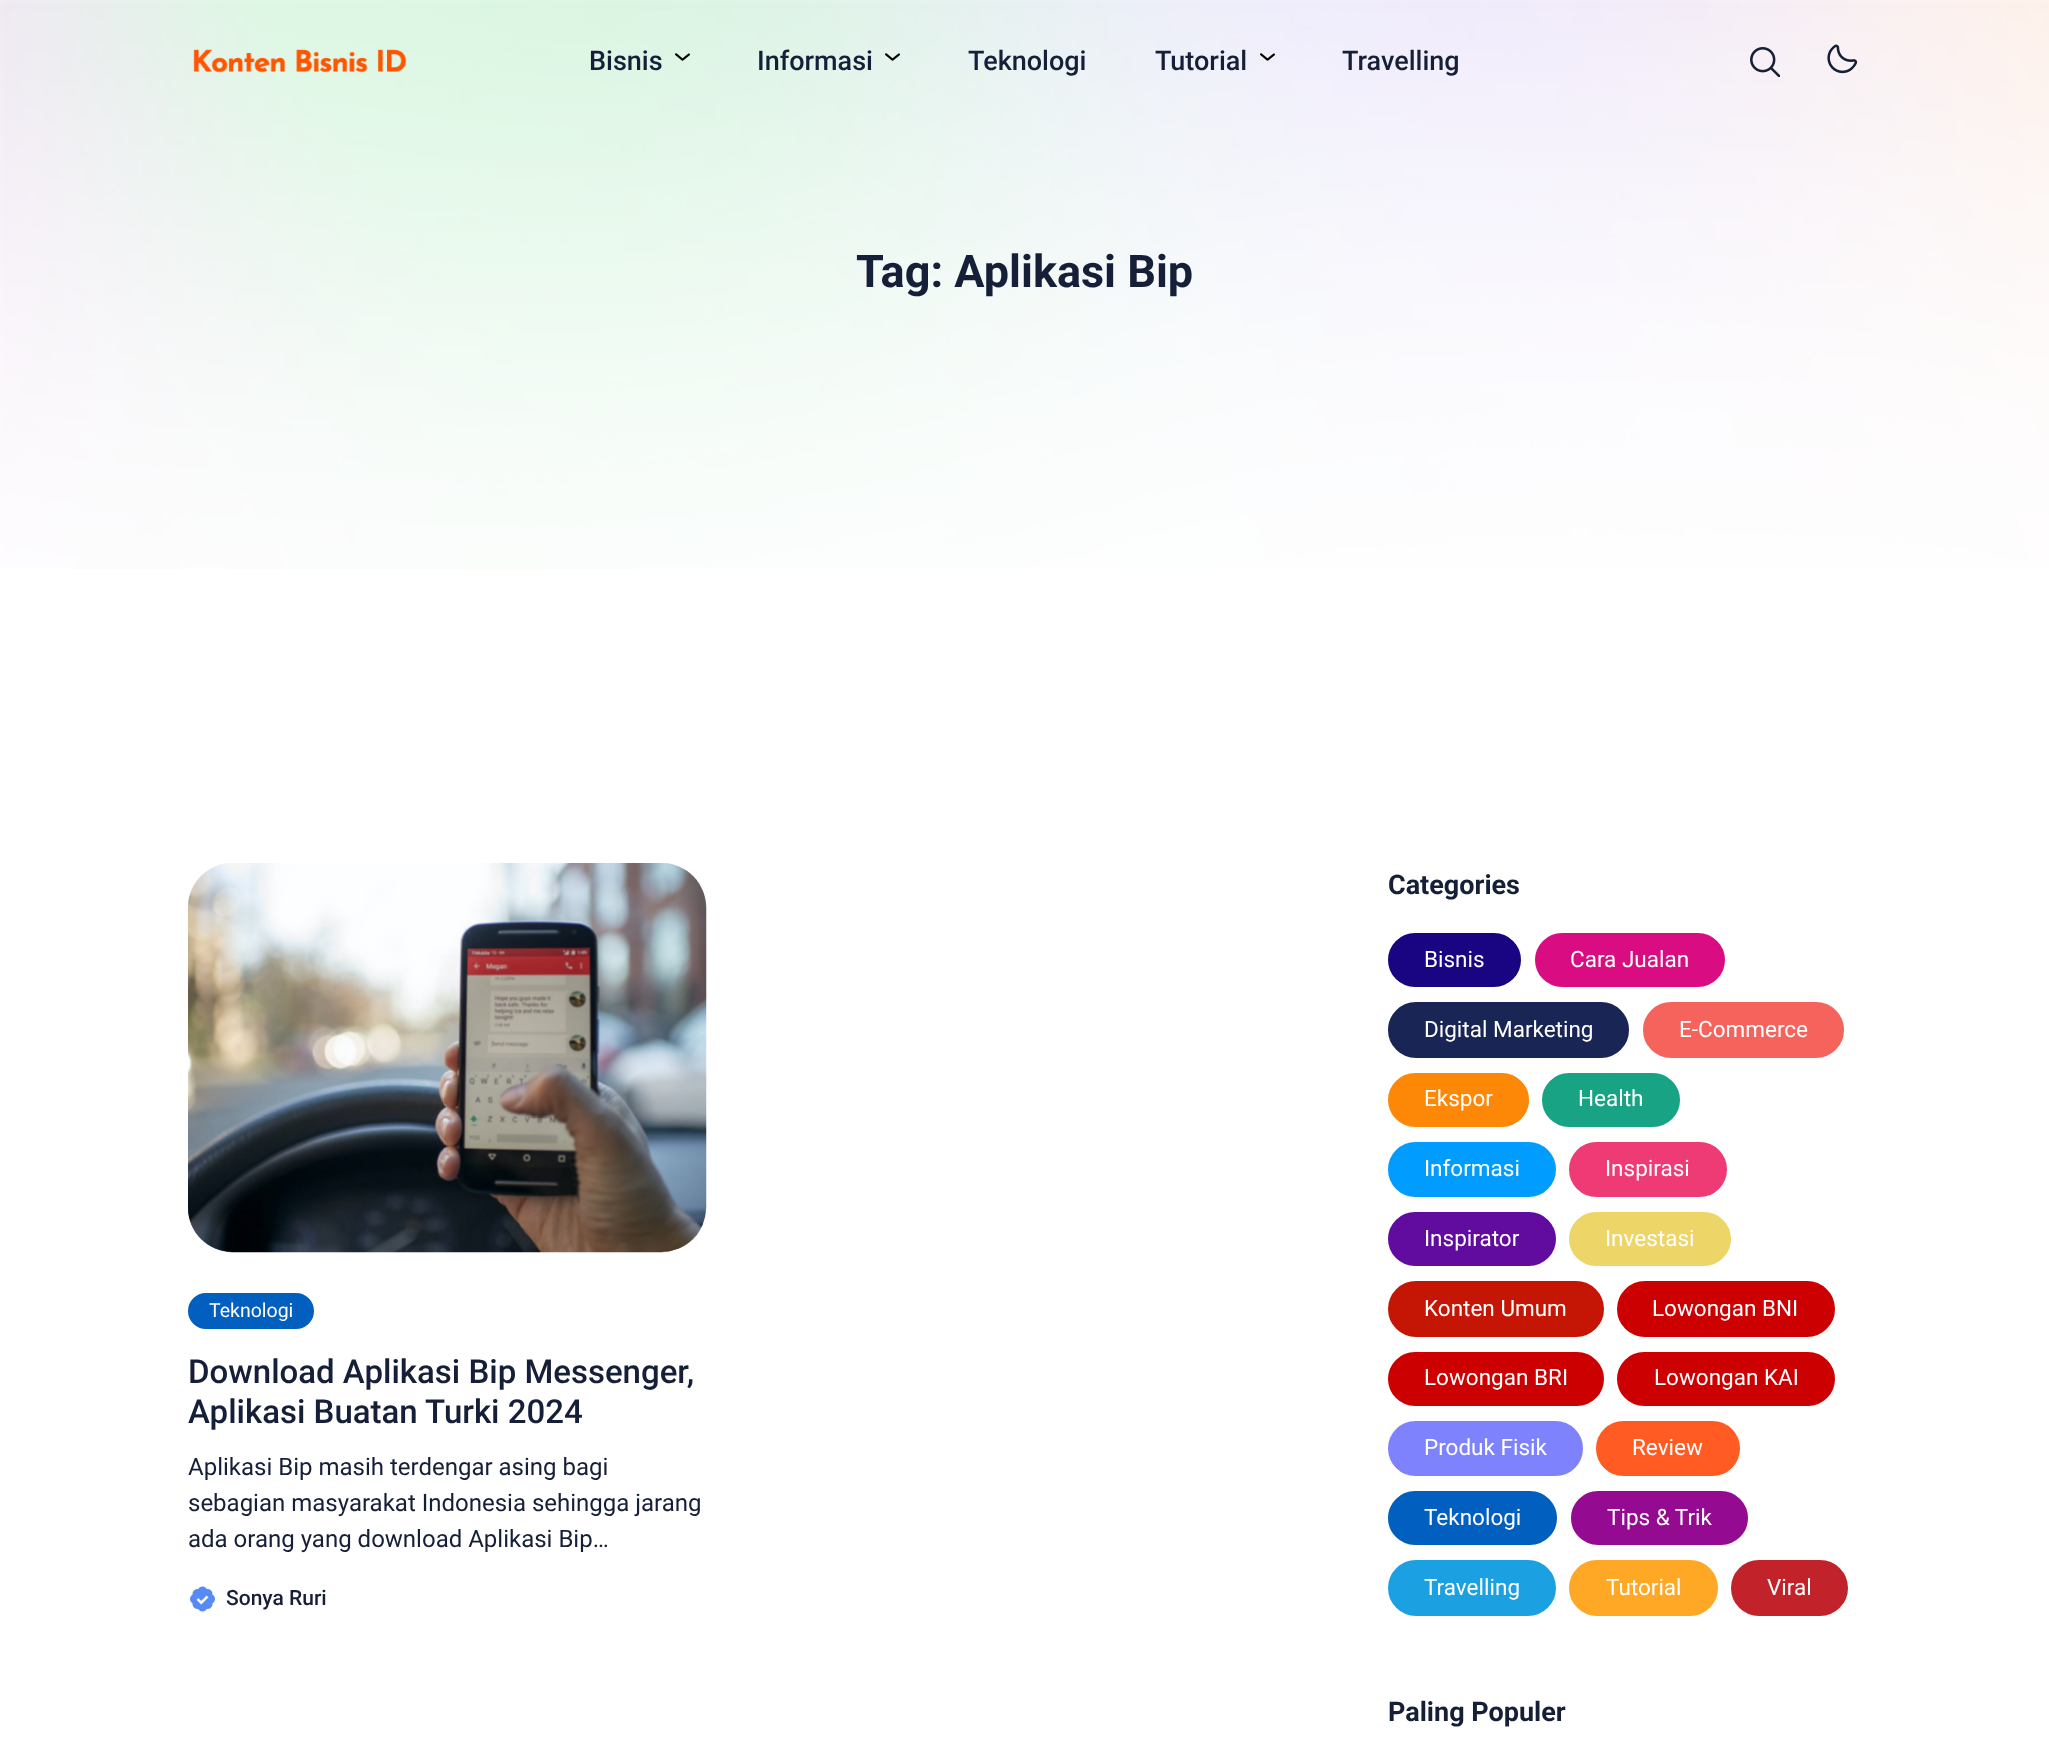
<svg xmlns="http://www.w3.org/2000/svg" width="2049" height="1737">
<style>
.a{font:500 27px Roboto;fill:#161f38}
.b{font:bold 45px Roboto;fill:#161f38}
.c{font:19.5px Roboto;fill:#fff}
.d{font:500 33px Roboto;fill:#161f38}
.e{font:24px Roboto;fill:#161f38}
.f{font:500 21px Roboto;fill:#161f38}
.g{font:bold 27px Roboto;fill:#161f38}
.h{font:22.5px Roboto;fill:#fff}
</style>
<rect width="100%" height="100%" fill="#fff"/>
<image href="1.png" x="0" y="0" width="2049" height="569"/>
<image href="2.png" x="193" y="49" width="214" height="24"/>
<image href="3.png" x="675" y="53" width="15" height="8"/>
<image href="4.png" x="885" y="53" width="15" height="8"/>
<image href="5.png" x="1260" y="53" width="15" height="8"/>
<image href="6.png" x="1750" y="47" width="30" height="30"/>
<image href="7.png" x="1827" y="44" width="31" height="30"/>
<image href="8.png" x="188" y="863" width="519" height="390"/>
<rect fill="#015fbf" stroke="#015fbf" stroke-width="2" x="189" y="1294" width="124" height="34" rx="17"/>
<image href="9.png" x="190" y="1586" width="25" height="26"/>
<rect fill="#190482" stroke="#190482" stroke-width="2" x="1389" y="934" width="131" height="52" rx="26"/>
<rect fill="#da0c81" stroke="#da0c81" stroke-width="2" x="1536" y="934" width="188" height="52" rx="26"/>
<rect fill="#192655" stroke="#192655" stroke-width="2" x="1389" y="1003" width="239" height="54" rx="27"/>
<rect fill="#f6635c" stroke="#f6635c" stroke-width="2" x="1644" y="1003" width="199" height="54" rx="27"/>
<rect fill="#fd8807" stroke="#fd8807" stroke-width="2" x="1389" y="1074" width="139" height="52" rx="26"/>
<rect fill="#18a384" stroke="#18a384" stroke-width="2" x="1543" y="1074" width="136" height="52" rx="26"/>
<rect fill="#009cff" stroke="#009cff" stroke-width="2" x="1389" y="1143" width="166" height="53" rx="26.5"/>
<rect fill="#ee3b76" stroke="#ee3b76" stroke-width="2" x="1570" y="1143" width="156" height="53" rx="26.5"/>
<rect fill="#610c9f" stroke="#610c9f" stroke-width="2" x="1389" y="1213" width="166" height="52" rx="26"/>
<rect fill="#edd568" stroke="#edd568" stroke-width="2" x="1570" y="1213" width="160" height="52" rx="26"/>
<rect fill="#c51605" stroke="#c51605" stroke-width="2" x="1389" y="1282" width="214" height="54" rx="27"/>
<rect fill="#c00" stroke="#c00" stroke-width="2" x="1618" y="1282" width="216" height="54" rx="27"/>
<rect fill="#c00" stroke="#c00" stroke-width="2" x="1389" y="1353" width="214" height="52" rx="26"/>
<rect fill="#c00" stroke="#c00" stroke-width="2" x="1618" y="1353" width="216" height="52" rx="26"/>
<rect fill="#7e83fd" stroke="#7e83fd" stroke-width="2" x="1389" y="1422" width="193" height="53" rx="26.5"/>
<rect fill="#ff5b22" stroke="#ff5b22" stroke-width="2" x="1597" y="1422" width="142" height="53" rx="26.5"/>
<rect fill="#015fbf" stroke="#015fbf" stroke-width="2" x="1389" y="1492" width="167" height="52" rx="26"/>
<rect fill="#940b92" stroke="#940b92" stroke-width="2" x="1572" y="1492" width="175" height="52" rx="26"/>
<rect fill="#1ba0e2" stroke="#1ba0e2" stroke-width="2" x="1389" y="1561" width="166" height="54" rx="27"/>
<rect fill="#ffa825" stroke="#ffa825" stroke-width="2" x="1570" y="1561" width="147" height="54" rx="27"/>
<rect fill="#c22229" stroke="#c22229" stroke-width="2" x="1732" y="1561" width="115" height="54" rx="27"/>
<text class="a" x="589" y="70">Bisnis</text>
<text class="a" x="757" y="70">Informasi</text>
<text class="a" x="968" y="70">Teknologi</text>
<text class="a" x="1155" y="70">Tutorial</text>
<text class="a" x="1342" y="70">Travelling</text>
<text class="b" x="856" y="287">Tag: Aplikasi Bip</text>
<text class="c" x="209" y="1317">Teknologi</text>
<text class="d" x="188" y="1383">Download Aplikasi Bip Messenger,</text>
<text class="d" x="188" y="1423">Aplikasi Buatan Turki 2024</text>
<text class="e" x="188" y="1475">Aplikasi Bip masih terdengar asing bagi</text>
<text class="e" x="188" y="1511">sebagian masyarakat Indonesia sehingga jarang</text>
<text class="e" x="188" y="1547">ada orang yang download Aplikasi Bip…</text>
<text class="f" x="226" y="1605">Sonya Ruri</text>
<text class="g" x="1388" y="894">Categories</text>
<text class="h" x="1424" y="967">Bisnis</text>
<text class="h" x="1570" y="967">Cara Jualan</text>
<text class="h" x="1424" y="1037">Digital Marketing</text>
<text class="h" x="1679" y="1037">E-Commerce</text>
<text class="h" x="1424" y="1106">Ekspor</text>
<text class="h" x="1578" y="1106">Health</text>
<text class="h" x="1424" y="1176">Informasi</text>
<text class="h" x="1605" y="1176">Inspirasi</text>
<text class="h" x="1424" y="1246">Inspirator</text>
<text class="h" x="1605" y="1246">Investasi</text>
<text class="h" x="1424" y="1316">Konten Umum</text>
<text class="h" x="1652" y="1316">Lowongan BNI</text>
<text class="h" x="1424" y="1385">Lowongan BRI</text>
<text class="h" x="1654" y="1385">Lowongan KAI</text>
<text class="h" x="1424" y="1455">Produk Fisik</text>
<text class="h" x="1632" y="1455">Review</text>
<text class="h" x="1424" y="1525">Teknologi</text>
<text class="h" x="1607" y="1525">Tips &amp; Trik</text>
<text class="h" x="1424" y="1595">Travelling</text>
<text class="h" x="1606" y="1595">Tutorial</text>
<text class="h" x="1767" y="1595">Viral</text>
<text class="g" x="1388" y="1721">Paling Populer</text>
</svg>
